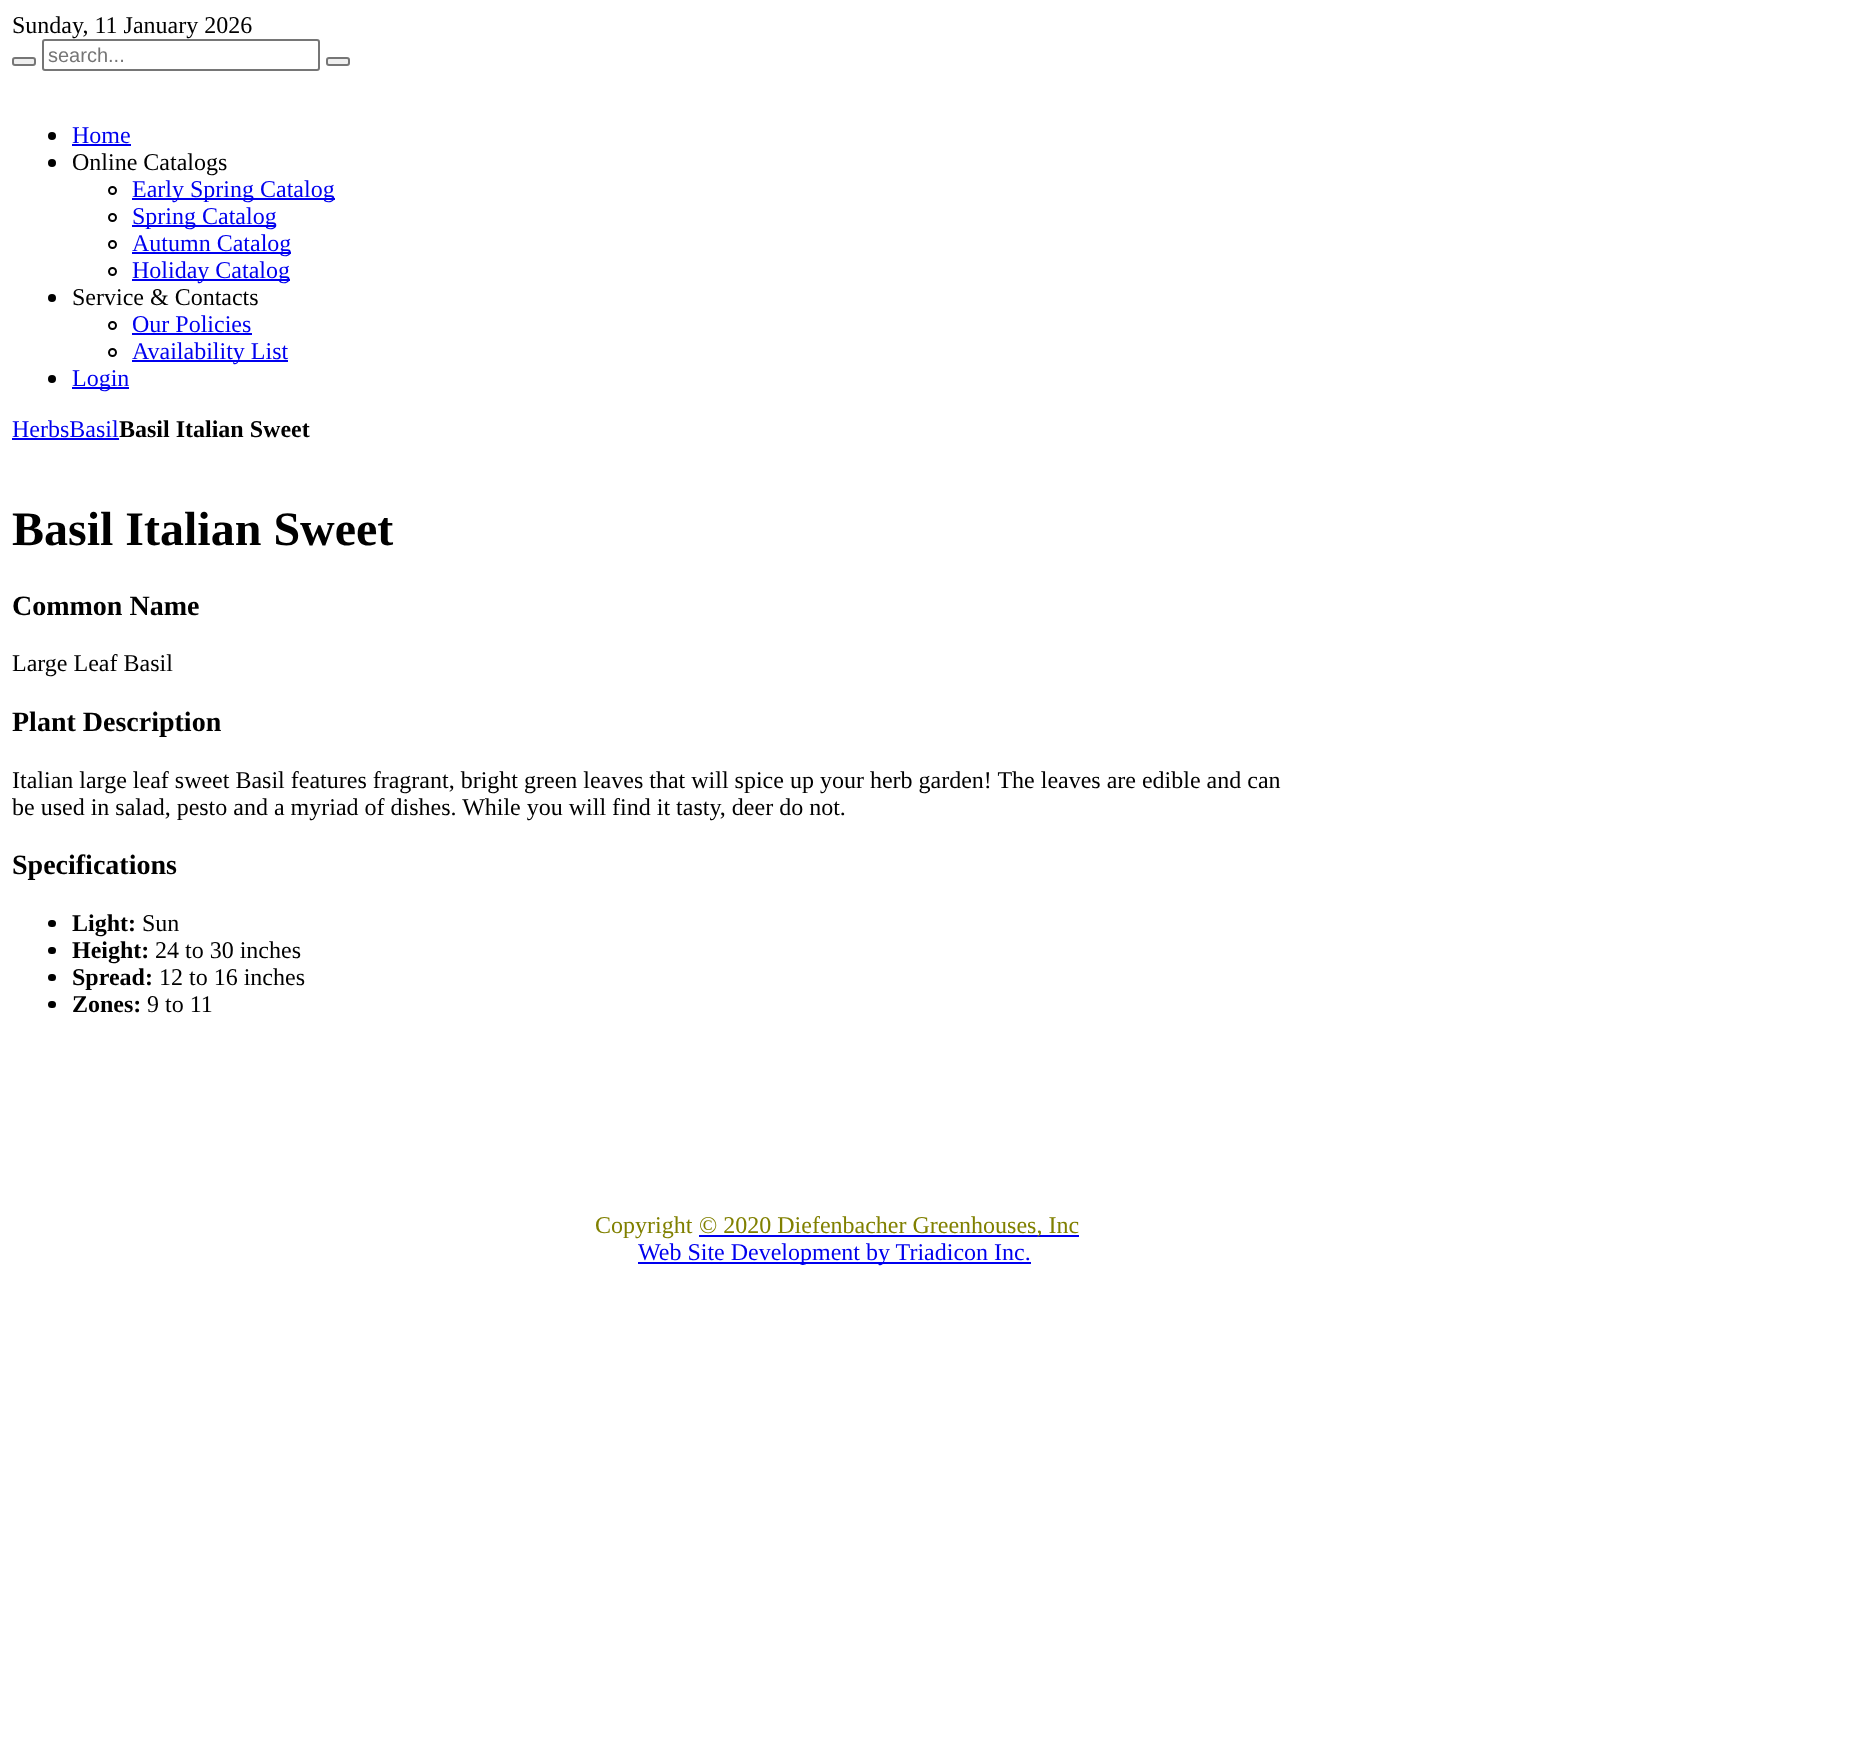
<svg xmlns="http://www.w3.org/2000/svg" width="1852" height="1744">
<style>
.a{font:24px Liberation Serif;fill:#000}
.b{font:20px Liberation Sans;fill:#757575}
.c{font:24px Liberation Serif;fill:#00e}
.d{font:bold 24px Liberation Serif;fill:#000}
.e{font:bold 48px Liberation Serif;fill:#000}
.f{font:bold 28px Liberation Serif;fill:#000}
.g{font:24px Liberation Serif;fill:#808000}
</style>
<rect width="100%" height="100%" fill="#fff"/>
<rect fill="#efefef" stroke="#767676" stroke-width="2" x="13" y="58" width="22" height="7" rx="2"/>
<rect fill="none" stroke="#767676" stroke-width="2" x="43" y="40" width="276" height="30" rx="2"/>
<rect fill="#efefef" stroke="#767676" stroke-width="2" x="327" y="58" width="22" height="7" rx="2"/>
<circle fill="#000" cx="52" cy="136" r="4"/>
<path fill="#00e" d="M72 144h59v2H72z"/>
<circle fill="#000" cx="52" cy="163" r="4"/>
<circle fill="none" stroke="#000" stroke-width="2" cx="112.5" cy="190.5" r="3.5"/>
<path fill="#00e" d="M132 198h203v2H132z"/>
<circle fill="none" stroke="#000" stroke-width="2" cx="112.5" cy="217.5" r="3.5"/>
<path fill="#00e" d="M132 225h144v2H132z"/>
<circle fill="none" stroke="#000" stroke-width="2" cx="112.5" cy="244.5" r="3.5"/>
<path fill="#00e" d="M132 252h159v2H132z"/>
<circle fill="none" stroke="#000" stroke-width="2" cx="112.5" cy="271.5" r="3.5"/>
<path fill="#00e" d="M132 279h158v2H132z"/>
<circle fill="#000" cx="52" cy="298" r="4"/>
<circle fill="none" stroke="#000" stroke-width="2" cx="112.5" cy="325.5" r="3.5"/>
<path fill="#00e" d="M132 333h120v2H132z"/>
<circle fill="none" stroke="#000" stroke-width="2" cx="112.5" cy="352.5" r="3.5"/>
<path fill="#00e" d="M132 360h156v2H132z"/>
<circle fill="#000" cx="52" cy="379" r="4"/>
<path fill="#00e" d="M72 387h57v2H72z"/>
<path fill="#00e" d="M12 438h107v2H12z"/>
<rect fill="#000" x="48" y="920" width="8" height="7" rx="3.5"/>
<rect fill="#000" x="48" y="947" width="8" height="7" rx="3.5"/>
<rect fill="#000" x="48" y="974" width="8" height="7" rx="3.5"/>
<rect fill="#000" x="48" y="1001" width="8" height="7" rx="3.5"/>
<path fill="#00e" d="M699 1235h380v2H699z"/>
<path fill="#00e" d="M638 1262h393v2H638z"/>
<text class="a" x="12" y="33">Sunday, 11 January 2026</text>
<text class="b" x="48" y="62">search...</text>
<text class="c" x="72" y="143">Home</text>
<text class="a" x="72" y="170">Online Catalogs</text>
<text class="c" x="132" y="197">Early Spring Catalog</text>
<text class="c" x="132" y="224">Spring Catalog</text>
<text class="c" x="132" y="251">Autumn Catalog</text>
<text class="c" x="132" y="278">Holiday Catalog</text>
<text class="a" x="72" y="305">Service &amp; Contacts</text>
<text class="c" x="132" y="332">Our Policies</text>
<text class="c" x="132" y="359">Availability List</text>
<text class="c" x="72" y="386">Login</text>
<text class="c" x="12" y="437">HerbsBasil</text>
<text class="d" x="119" y="437">Basil Italian Sweet</text>
<text class="e" x="12" y="545">Basil Italian Sweet</text>
<text class="f" x="12" y="615">Common Name</text>
<text class="a" x="12" y="671">Large Leaf Basil</text>
<text class="f" x="12" y="731">Plant Description</text>
<text class="a" x="12" y="788">Italian large leaf sweet Basil features fragrant, bright green leaves that will spice up your herb garden! The leaves are edible and can</text>
<text class="a" x="12" y="815">be used in salad, pesto and a myriad of dishes. While you will find it tasty, deer do not.</text>
<text class="f" x="12" y="874">Specifications</text>
<text class="d" x="72" y="931">Light:</text>
<text class="a" x="142" y="931">Sun</text>
<text class="d" x="72" y="958">Height:</text>
<text class="a" x="155" y="958">24 to 30 inches</text>
<text class="d" x="72" y="985">Spread:</text>
<text class="a" x="159" y="985">12 to 16 inches</text>
<text class="d" x="72" y="1012">Zones:</text>
<text class="a" x="147" y="1012">9 to 11</text>
<text class="g" x="595" y="1233">Copyright</text>
<text class="g" x="699" y="1233">© 2020 Diefenbacher Greenhouses, Inc</text>
<text class="c" x="638" y="1260">Web Site Development by Triadicon Inc.</text>
</svg>
